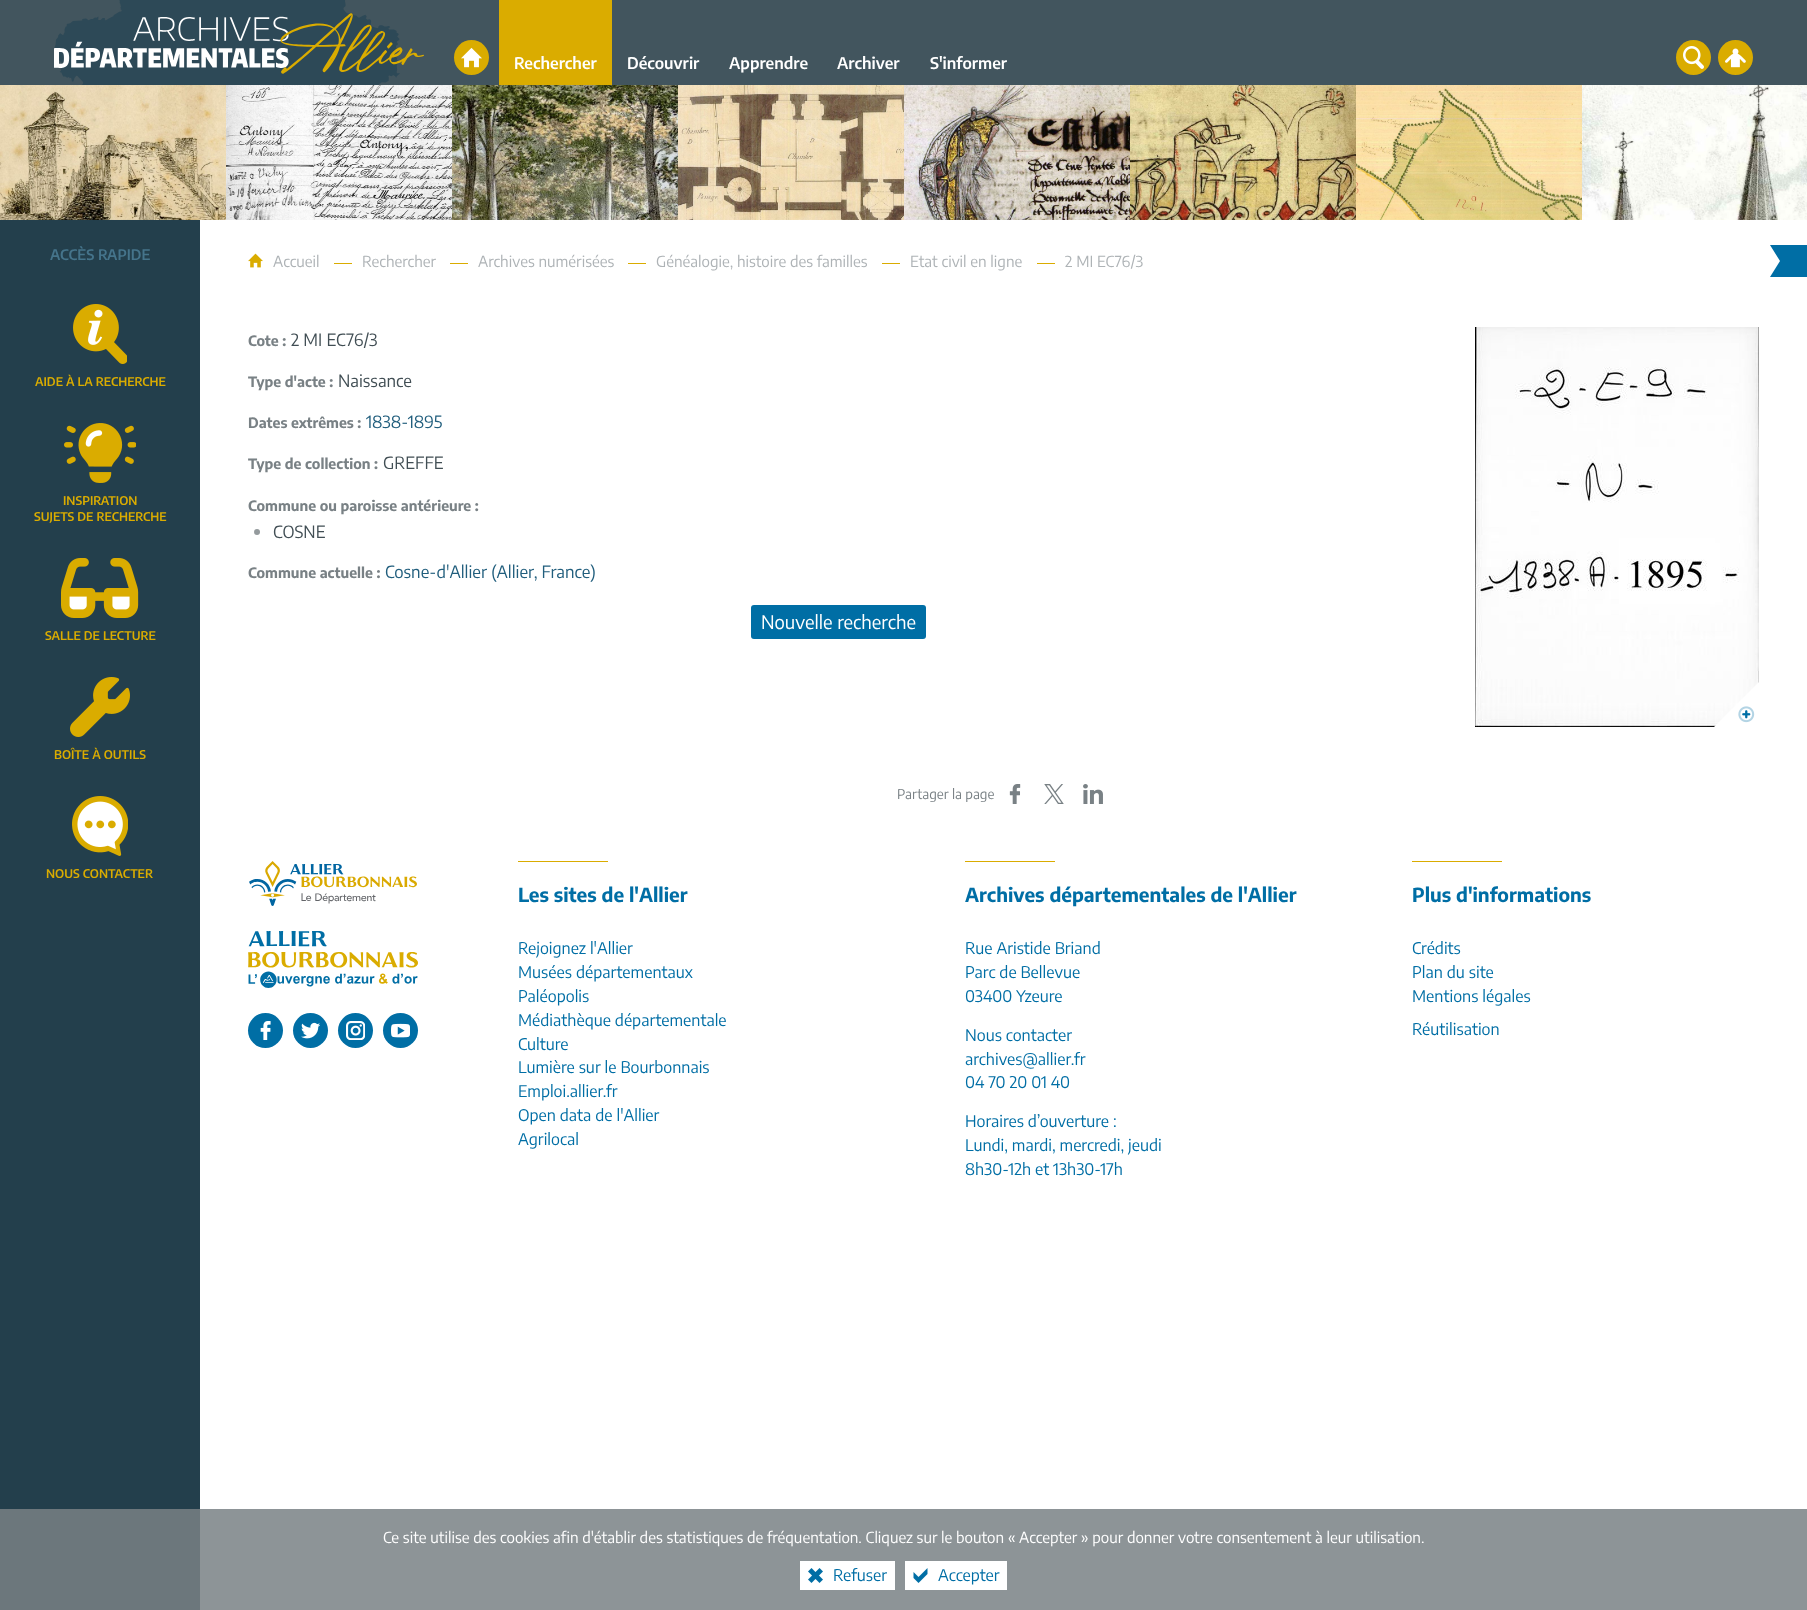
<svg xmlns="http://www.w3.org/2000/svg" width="1807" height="1610">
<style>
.a{font:100 16px 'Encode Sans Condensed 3';fill:#fff}
.b{font:100 14.5px 'Encode Sans Condensed 3';fill:#45748b}
.c{font:100 12px 'Encode Sans Condensed 3';fill:#daac00}
.d{font:100 14.25px Encode Sans Condensed;fill:#798185}
.e{font:100 16.75px 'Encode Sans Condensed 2';fill:#414e54}
.f{font:100 16.75px 'Encode Sans Condensed 2';fill:#215e7d}
.g{font:100 18.5px 'Encode Sans Condensed 2';fill:#fff}
.h{font:100 15.12px 'Encode Sans Condensed 2';fill:#aeb3b6}
.i{font:100 13.5px 'Encode Sans Condensed 2';fill:#798185}
.j{font:100 19.3px Encode Sans Condensed;fill:#006ea5}
.k{font:100 16px 'Encode Sans Condensed 2';fill:#006ea5}
.l{font:100 15.12px 'Encode Sans Condensed 2';fill:#fff}
</style>
<rect width="100%" height="100%" fill="#fff"/>
<path fill="#8d9497" d="M200 1509h1607v101H200z"/>
<path fill="#233f4c" d="M0 219h200v1290H0z"/>
<path fill="#6c777c" d="M0 1509h200v101H0z"/>
<path fill="#42555e" d="M0 0h1807v85H0z"/>
<image href="1.png" x="54" y="0" width="370" height="85"/>
<circle fill="#daac00" cx="471.5" cy="57.5" r="17.5"/>
<image href="2.png" x="461" y="47" width="21" height="21"/>
<path fill="#daac00" d="M499 0h113v85H499z"/>
<circle fill="#daac00" cx="1693.5" cy="57.5" r="17.5"/>
<image href="3.png" x="1683" y="46" width="21" height="23"/>
<circle fill="#daac00" cx="1735.5" cy="57.5" r="17.5"/>
<image href="4.png" x="1725" y="48" width="21" height="20"/>
<image href="5.png" x="0" y="85" width="226" height="135"/>
<image href="6.png" x="226" y="85" width="226" height="135"/>
<image href="7.png" x="452" y="85" width="226" height="135"/>
<image href="8.png" x="678" y="85" width="226" height="135"/>
<image href="9.png" x="904" y="85" width="226" height="135"/>
<image href="10.png" x="1130" y="85" width="226" height="135"/>
<image href="11.png" x="1356" y="85" width="226" height="135"/>
<image href="12.png" x="1582" y="85" width="225" height="135"/>
<image href="13.png" x="73" y="304" width="54" height="60"/>
<image href="14.png" x="64" y="423" width="72" height="60"/>
<image href="15.png" x="61" y="558" width="78" height="60"/>
<image href="16.png" x="70" y="677" width="60" height="60"/>
<image href="17.png" x="72" y="796" width="56" height="60"/>
<image href="18.png" x="1475" y="327" width="284" height="400"/>
<path fill="#fff" d="M1759 727h-45l45-45z"/>
<image href="19.png" x="1738" y="706" width="17" height="17"/>
<circle fill="#949a9d" cx="257" cy="532" r="3"/>
<rect fill="#006ea5" x="751" y="605" width="175" height="34" rx="3"/>
<image href="20.png" x="248" y="253" width="15" height="15"/>
<path fill="#daac00" d="M334 263h18v1H334z"/>
<path fill="#daac00" d="M450 263h18v1H450z"/>
<path fill="#daac00" d="M628 263h18v1H628z"/>
<path fill="#daac00" d="M882 263h18v1H882z"/>
<path fill="#daac00" d="M1037 263h18v1H1037z"/>
<path fill="#006ea5" d="M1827 277h-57l10-16l-10-16h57z"/>
<image href="21.png" x="1009" y="784" width="12" height="20"/>
<image href="22.png" x="1044" y="784" width="20" height="20"/>
<image href="23.png" x="1083" y="784" width="20" height="20"/>
<image href="24.png" x="249" y="861" width="168" height="45"/>
<image href="25.png" x="248" y="931" width="170" height="57"/>
<circle fill="#006ea5" cx="265.5" cy="1030.5" r="17.5"/>
<image href="26.png" x="260" y="1021" width="11" height="19"/>
<circle fill="#006ea5" cx="310.5" cy="1030.5" r="17.5"/>
<image href="27.png" x="301" y="1022" width="19" height="17"/>
<circle fill="#006ea5" cx="355.5" cy="1030.5" r="17.5"/>
<image href="28.png" x="346" y="1021" width="19" height="19"/>
<circle fill="#006ea5" cx="400.5" cy="1030.5" r="17.5"/>
<image href="29.png" x="391" y="1023" width="19" height="15"/>
<path fill="#daac00" d="M518 861h90v1H518z"/>
<path fill="#daac00" d="M965 861h90v1H965z"/>
<path fill="#daac00" d="M1412 861h90v1H1412z"/>
<path fill="#fff" d="M800 1561h95v29H800z"/>
<image href="30.png" x="808" y="1568" width="15" height="15"/>
<path fill="#fff" d="M905 1561h102v29H905z"/>
<image href="31.png" x="913" y="1568" width="15" height="15"/>
<text class="a" x="514" y="69">Rechercher</text>
<text class="a" x="627" y="69">Découvrir</text>
<text class="a" x="729" y="69">Apprendre</text>
<text class="a" x="837" y="69">Archiver</text>
<text class="a" x="930" y="69">S'informer</text>
<text class="b" x="50" y="260">ACCÈS RAPIDE</text>
<text class="c" x="35" y="386">AIDE À LA RECHERCHE</text>
<text class="c" x="63" y="505">INSPIRATION</text>
<text class="c" x="34" y="521">SUJETS DE RECHERCHE</text>
<text class="c" x="45" y="640">SALLE DE LECTURE</text>
<text class="c" x="54" y="759">BOÎTE À OUTILS</text>
<text class="c" x="46" y="878">NOUS CONTACTER</text>
<text class="d" x="248" y="346">Cote :</text>
<text class="e" x="291" y="346">2 MI EC76/3</text>
<text class="d" x="248" y="387">Type d'acte :</text>
<text class="e" x="338" y="387">Naissance</text>
<text class="d" x="248" y="428">Dates extrêmes :</text>
<text class="f" x="366" y="428">1838-1895</text>
<text class="d" x="248" y="469">Type de collection :</text>
<text class="e" x="383" y="469">GREFFE</text>
<text class="d" x="248" y="511">Commune ou paroisse antérieure :</text>
<text class="e" x="273" y="538">COSNE</text>
<text class="d" x="248" y="578">Commune actuelle :</text>
<text class="f" x="385" y="578">Cosne-d'Allier (Allier, France)</text>
<text class="g" x="761" y="629">Nouvelle recherche</text>
<text class="h" x="273" y="267">Accueil</text>
<text class="h" x="362" y="267">Rechercher</text>
<text class="h" x="478" y="267">Archives numérisées</text>
<text class="h" x="656" y="267">Généalogie, histoire des familles</text>
<text class="h" x="910" y="267">Etat civil en ligne</text>
<text class="h" x="1065" y="267">2 MI EC76/3</text>
<text class="i" x="897" y="799">Partager la page</text>
<text class="j" x="518" y="902">Les sites de l'Allier</text>
<text class="k" x="518" y="954">Rejoignez l'Allier</text>
<text class="k" x="518" y="978">Musées départementaux</text>
<text class="k" x="518" y="1002">Paléopolis</text>
<text class="k" x="518" y="1026">Médiathèque départementale</text>
<text class="k" x="518" y="1050">Culture</text>
<text class="k" x="518" y="1073">Lumière sur le Bourbonnais</text>
<text class="k" x="518" y="1097">Emploi.allier.fr</text>
<text class="k" x="518" y="1121">Open data de l'Allier</text>
<text class="k" x="518" y="1145">Agrilocal</text>
<text class="j" x="965" y="902">Archives départementales de l'Allier</text>
<text class="k" x="965" y="954">Rue Aristide Briand</text>
<text class="k" x="965" y="978">Parc de Bellevue</text>
<text class="k" x="965" y="1002">03400 Yzeure</text>
<text class="k" x="965" y="1041">Nous contacter</text>
<text class="k" x="965" y="1065">archives@allier.fr</text>
<text class="k" x="965" y="1088">04 70 20 01 40</text>
<text class="k" x="965" y="1127">Horaires d’ouverture :</text>
<text class="k" x="965" y="1151">Lundi, mardi, mercredi, jeudi</text>
<text class="k" x="965" y="1175">8h30-12h et 13h30-17h</text>
<text class="j" x="1412" y="902">Plus d'informations</text>
<text class="k" x="1412" y="954">Crédits</text>
<text class="k" x="1412" y="978">Plan du site</text>
<text class="k" x="1412" y="1002">Mentions légales</text>
<text class="k" x="1412" y="1035">Réutilisation</text>
<text class="l" x="383" y="1543">Ce site utilise des cookies afin d'établir des statistiques de fréquentation. Cliquez sur le bouton « Accepter » pour donner votre consentement à leur utilisation.</text>
<text class="k" x="833" y="1581">Refuser</text>
<text class="k" x="938" y="1581">Accepter</text>
</svg>
